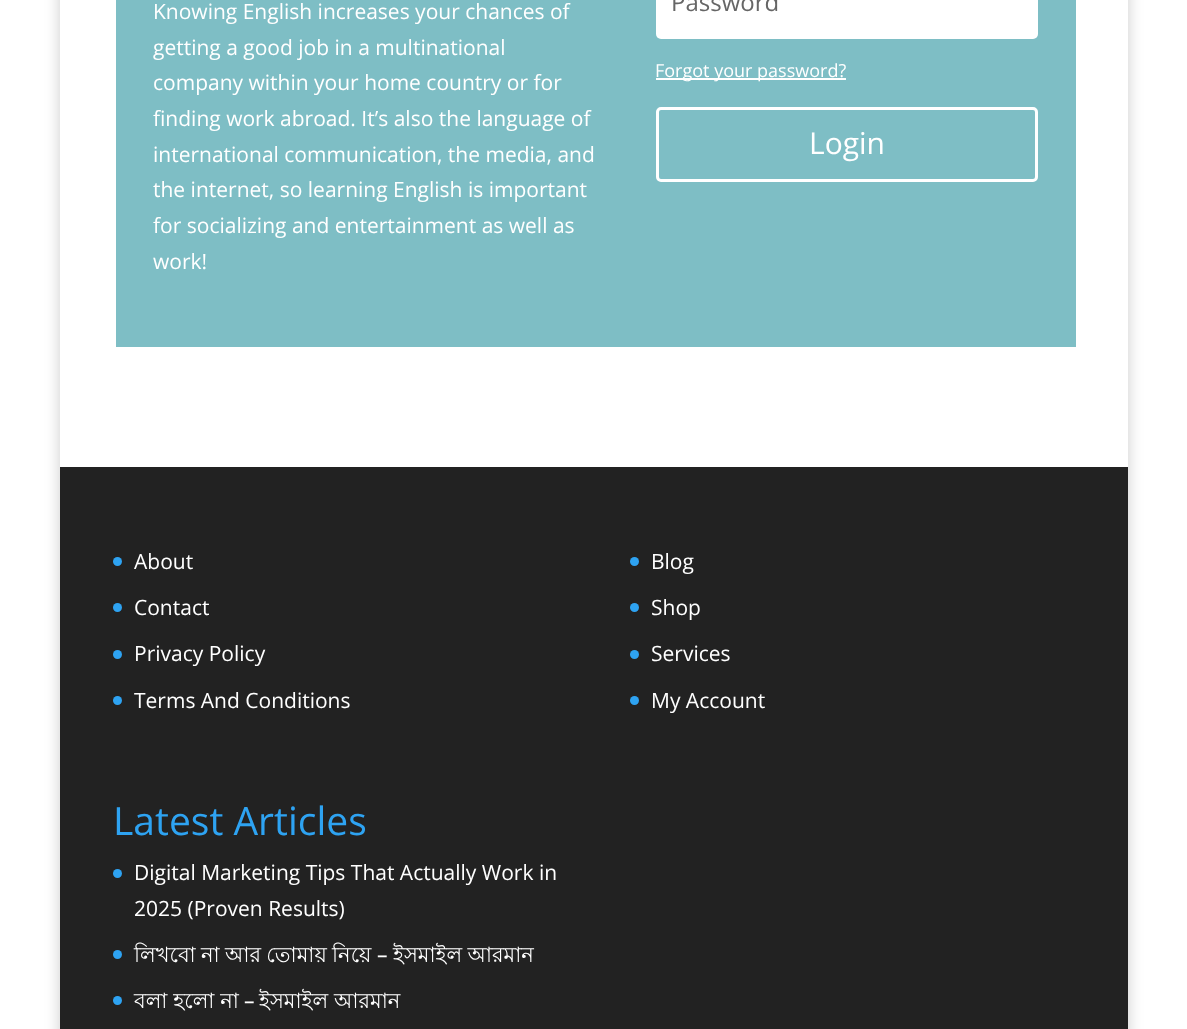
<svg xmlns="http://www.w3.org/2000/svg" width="1187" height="1029">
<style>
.a{font:21px Open Sans;fill:#fff}
.b{font:24px Open Sans;fill:#666}
.c{font:18px Open Sans;fill:#fff}
.d{font:30px Open Sans;fill:#fff}
.e{font:39px Open Sans;fill:#2ea3f2}
.f{font:21px Lohit Bengali;fill:#fff}
.g{font:500 21px Open Sans;fill:#fff}
</style>
<defs>
<clipPath id="clip1"><path d="M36 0h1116v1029h-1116zm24-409h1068v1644h-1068z" clip-rule="evenodd"/></clipPath>
</defs>
<rect width="100%" height="100%" fill="#fff"/>
<g clip-path="url(#clip1)">
<path fill="#00000033" filter="blur(7.5px)" d="M60 -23h1068v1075H60z"/>
</g>
<path fill="#7ebec5" d="M116 0h960v347H116z"/>
<rect fill="#fff" x="656" y="-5" width="382" height="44" rx="5"/>
<path fill="#fff" d="M656 78h190v2H656z"/>
<rect fill="none" stroke="#fff" stroke-width="3" x="657.5" y="108.5" width="379" height="72" rx="3.5"/>
<path fill="#222" d="M60 467h1068v562H60z"/>
<circle fill="#2ea3f2" cx="117.5" cy="561.5" r="4.5"/>
<circle fill="#2ea3f2" cx="117.5" cy="607.5" r="4.5"/>
<circle fill="#2ea3f2" cx="117.5" cy="654.5" r="4.5"/>
<circle fill="#2ea3f2" cx="117.5" cy="700.5" r="4.5"/>
<circle fill="#2ea3f2" cx="634.5" cy="561.5" r="4.5"/>
<circle fill="#2ea3f2" cx="634.5" cy="607.5" r="4.5"/>
<circle fill="#2ea3f2" cx="634.5" cy="654.5" r="4.5"/>
<circle fill="#2ea3f2" cx="634.5" cy="700.5" r="4.5"/>
<circle fill="#2ea3f2" cx="117.5" cy="873.5" r="4.5"/>
<circle fill="#2ea3f2" cx="117.5" cy="954.5" r="4.5"/>
<circle fill="#2ea3f2" cx="117.5" cy="1000.5" r="4.5"/>
<text class="a" x="153" y="19">Knowing English increases your chances of</text>
<text class="a" x="153" y="55">getting a good job in a multinational</text>
<text class="a" x="153" y="90">company within your home country or for</text>
<text class="a" x="153" y="126">finding work abroad. It’s also the language of</text>
<text class="a" x="153" y="162">international communication, the media, and</text>
<text class="a" x="153" y="197">the internet, so learning English is important</text>
<text class="a" x="153" y="233">for socializing and entertainment as well as</text>
<text class="a" x="153" y="269">work!</text>
<text class="b" x="671" y="11">Password</text>
<text class="c" x="655" y="77">Forgot your password?</text>
<text class="d" x="809" y="154">Login</text>
<text class="a" x="134" y="569">About</text>
<text class="a" x="134" y="615">Contact</text>
<text class="a" x="134" y="661">Privacy Policy</text>
<text class="a" x="134" y="708">Terms And Conditions</text>
<text class="a" x="651" y="569">Blog</text>
<text class="a" x="651" y="615">Shop</text>
<text class="a" x="651" y="661">Services</text>
<text class="a" x="651" y="708">My Account</text>
<text class="e" x="113" y="835">Latest Articles</text>
<text class="a" x="134" y="880">Digital Marketing Tips That Actually Work in</text>
<text class="a" x="134" y="916">2025 (Proven Results)</text>
<text class="f" x="134" y="962" word-spacing="-0.5">লিখবো না আর তোমায় নিয়ে</text>
<text class="g" x="377" y="962">–</text>
<text class="f" x="393" y="962" word-spacing="-0.5">ইসমাইল আরমান</text>
<text class="f" x="134" y="1008">বলা হলো না</text>
<text class="g" x="244" y="1008">–</text>
<text class="f" x="259" y="1008">ইসমাইল আরমান</text>
</svg>
